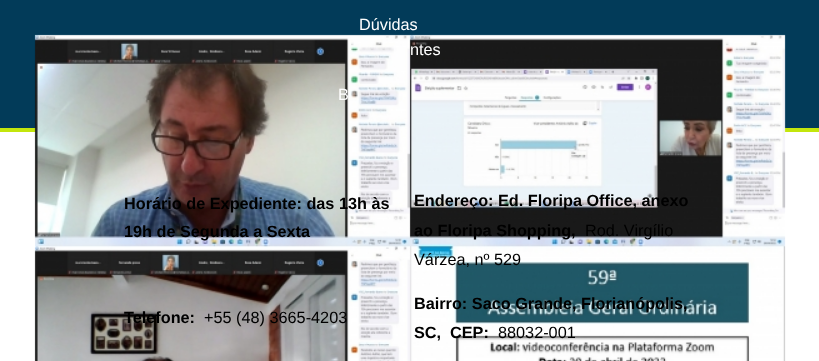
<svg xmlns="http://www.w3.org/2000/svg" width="819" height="361">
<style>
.a{font:16.25px Liberation Sans;fill:#fff}
.b{font:bold 16.25px Liberation Sans;fill:#000}
.c{font:16.25px Liberation Sans;fill:#000}
</style>
<rect width="100%" height="100%" fill="#fff"/>
<path fill="#023b59" d="M0 0h819v128H0z"/>
<path fill="#c3e60c" d="M0 128h819v4H0z"/>
<image href="1.png" x="34" y="34" width="752" height="327"/>
<text class="a" x="359" y="30">Dúvidas</text>
<text class="a" x="410" y="55">ntes</text>
<text class="a" x="338" y="100">B</text>
<text class="b" x="124" y="209">Horário de Expediente: das 13h às</text>
<text class="b" x="124" y="237">19h de Segunda a Sexta</text>
<text class="b" x="414" y="206">Endereço: Ed. Floripa Office, anexo</text>
<text class="b" x="414" y="236">ao Floripa Shopping,</text>
<text class="c" x="585" y="236">Rod. Virgílio</text>
<text class="c" x="414" y="265">Várzea, nº 529</text>
<text class="b" x="124" y="323">Telefone:</text>
<text class="c" x="204" y="323">+55 (48) 3665-4203</text>
<text class="b" x="414" y="309">Bairro: Saco Grande, Florianópolis,</text>
<text class="b" x="414" y="338">SC,</text>
<text class="b" x="450" y="338">CEP:</text>
<text class="c" x="498" y="338">88032-001</text>
</svg>
